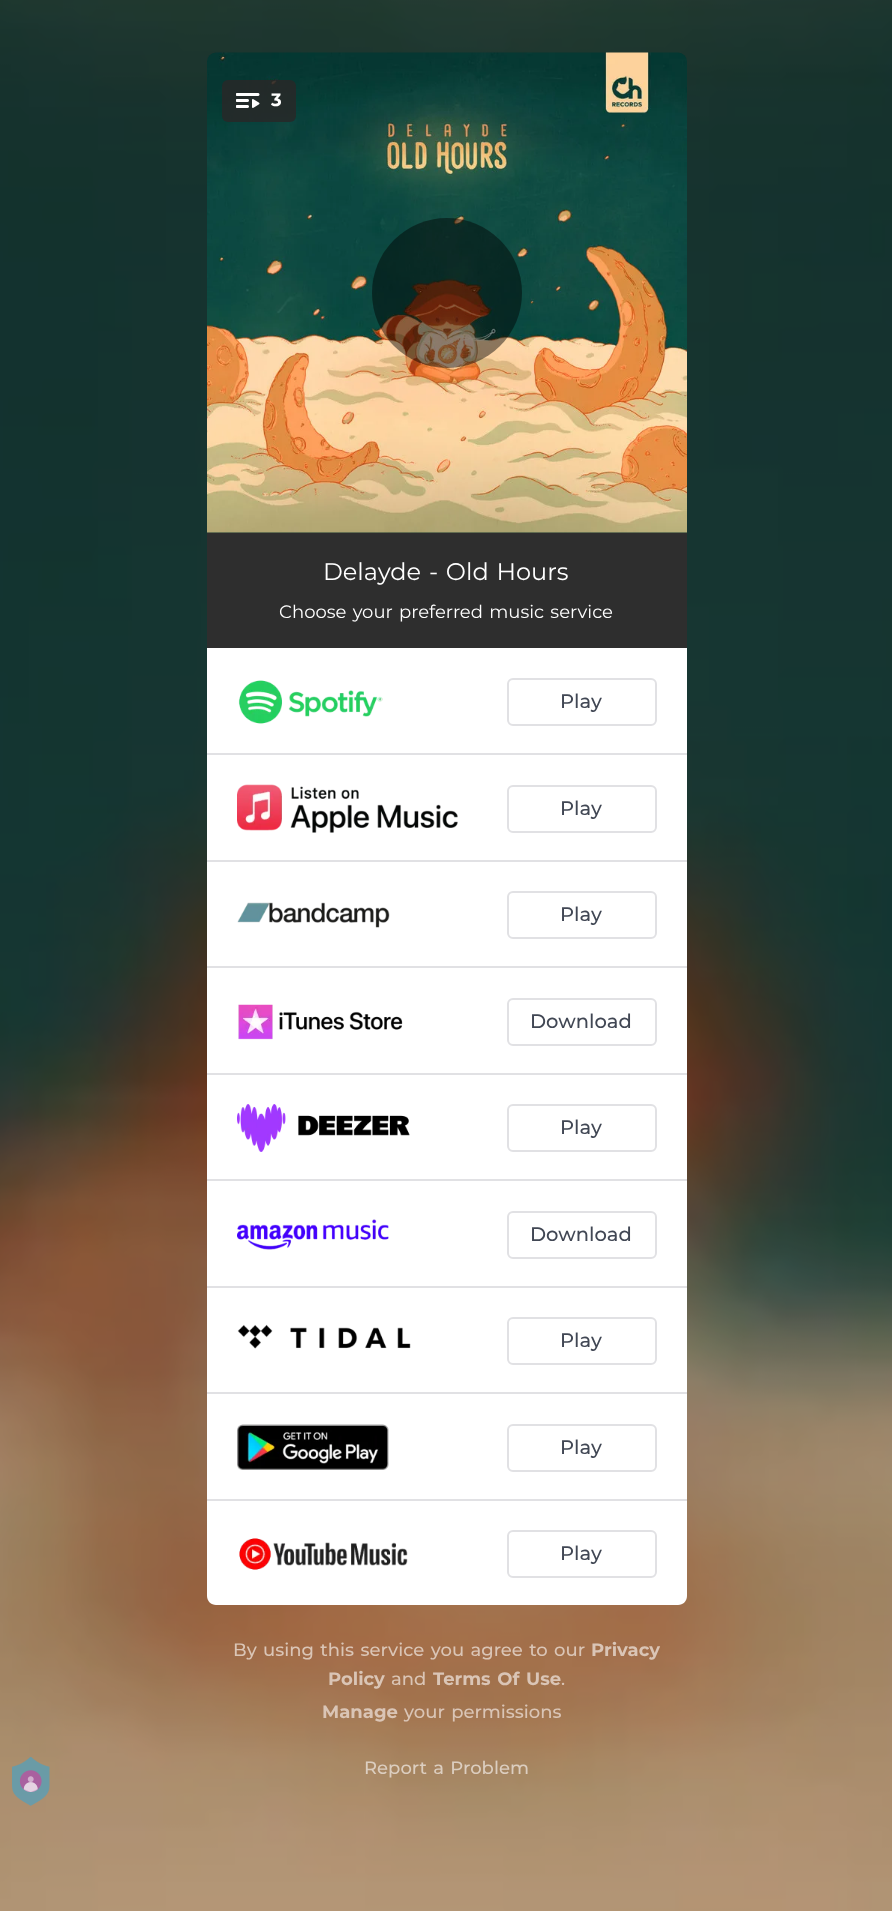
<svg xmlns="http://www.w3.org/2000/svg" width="892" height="1911">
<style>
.a{font:bold 18px Montserrat;fill:#fff}
.b{font:24px Montserrat;fill:#fff}
.c{font:18px Montserrat;fill:#fff}
.d{font:500 19.5px Montserrat;fill:#414754}
.e{font:500 18px Montserrat;fill:#dac5b6}
.f{font:bold 18px Montserrat;fill:#dac5b6}
.g{font:500 18px Montserrat;fill:#dccec0}
</style>
<rect width="100%" height="100%" fill="#fff"/>
<image href="2.png" x="0" y="0" width="892" height="1911"/>
<image href="1.png" x="12" y="1757" width="38" height="49"/>
<image href="3.png" x="207" y="52" width="480" height="481"/>
<rect fill="#282828d9" x="222" y="80" width="74" height="42" rx="6"/>
<image href="4.png" x="236" y="93" width="24" height="15"/>
<circle fill="#00000073" cx="447" cy="293" r="75"/>
<path fill="#2e2e2e" d="M207 533h480v115H207z"/>
<path fill="#fff" d="M207 648h480v948c0 5-4 9-9 9h-462c-5 0-9-4-9-9z"/>
<path fill="#e1e1e4" d="M207 753h480v2H207z"/>
<image href="5.png" x="238" y="680" width="145" height="44"/>
<rect fill="none" stroke="#e1e1e4" stroke-width="2" x="508" y="679" width="148" height="46" rx="5"/>
<path fill="#e1e1e4" d="M207 860h480v2H207z"/>
<image href="6.png" x="237" y="784" width="221" height="49"/>
<rect fill="none" stroke="#e1e1e4" stroke-width="2" x="508" y="786" width="148" height="46" rx="5"/>
<path fill="#e1e1e4" d="M207 966h480v2H207z"/>
<image href="7.png" x="237" y="902" width="153" height="26"/>
<rect fill="none" stroke="#e1e1e4" stroke-width="2" x="508" y="892" width="148" height="46" rx="5"/>
<path fill="#e1e1e4" d="M207 1073h480v2H207z"/>
<image href="8.png" x="238" y="1004" width="165" height="36"/>
<rect fill="none" stroke="#e1e1e4" stroke-width="2" x="508" y="999" width="148" height="46" rx="5"/>
<path fill="#e1e1e4" d="M207 1179h480v2H207z"/>
<image href="9.png" x="237" y="1104" width="173" height="48"/>
<rect fill="none" stroke="#e1e1e4" stroke-width="2" x="508" y="1105" width="148" height="46" rx="5"/>
<path fill="#e1e1e4" d="M207 1286h480v2H207z"/>
<image href="10.png" x="237" y="1219" width="152" height="31"/>
<rect fill="none" stroke="#e1e1e4" stroke-width="2" x="508" y="1212" width="148" height="46" rx="5"/>
<path fill="#e1e1e4" d="M207 1392h480v2H207z"/>
<image href="11.png" x="237" y="1324" width="174" height="25"/>
<rect fill="none" stroke="#e1e1e4" stroke-width="2" x="508" y="1318" width="148" height="46" rx="5"/>
<path fill="#e1e1e4" d="M207 1499h480v2H207z"/>
<image href="12.png" x="237" y="1424" width="152" height="46"/>
<rect fill="none" stroke="#e1e1e4" stroke-width="2" x="508" y="1425" width="148" height="46" rx="5"/>
<image href="13.png" x="239" y="1538" width="169" height="32"/>
<rect fill="none" stroke="#e1e1e4" stroke-width="2" x="508" y="1531" width="148" height="46" rx="5"/>
<text class="a" x="271" y="106">3</text>
<text class="b" x="323" y="580" word-spacing="1.5">Delayde - Old Hours</text>
<text class="c" x="279" y="618" word-spacing="1.5">Choose your preferred music service</text>
<text class="d" x="560" y="708">Play</text>
<text class="d" x="560" y="815">Play</text>
<text class="d" x="560" y="921">Play</text>
<text class="d" x="530" y="1028">Download</text>
<text class="d" x="560" y="1134">Play</text>
<text class="d" x="530" y="1241">Download</text>
<text class="d" x="560" y="1347">Play</text>
<text class="d" x="560" y="1454">Play</text>
<text class="d" x="560" y="1560">Play</text>
<text class="e" x="233" y="1656" word-spacing="1.5">By using this service you agree to our</text>
<text class="f" x="591" y="1656">Privacy</text>
<text class="f" x="328" y="1685">Policy</text>
<text class="e" x="391" y="1685">and</text>
<text class="f" x="433" y="1685" word-spacing="1.5">Terms Of Use</text>
<text class="e" x="561" y="1685">.</text>
<text class="f" x="322" y="1718">Manage</text>
<text class="e" x="404" y="1718" word-spacing="1.5">your permissions</text>
<text class="g" x="364" y="1774" word-spacing="1.5">Report a Problem</text>
</svg>
